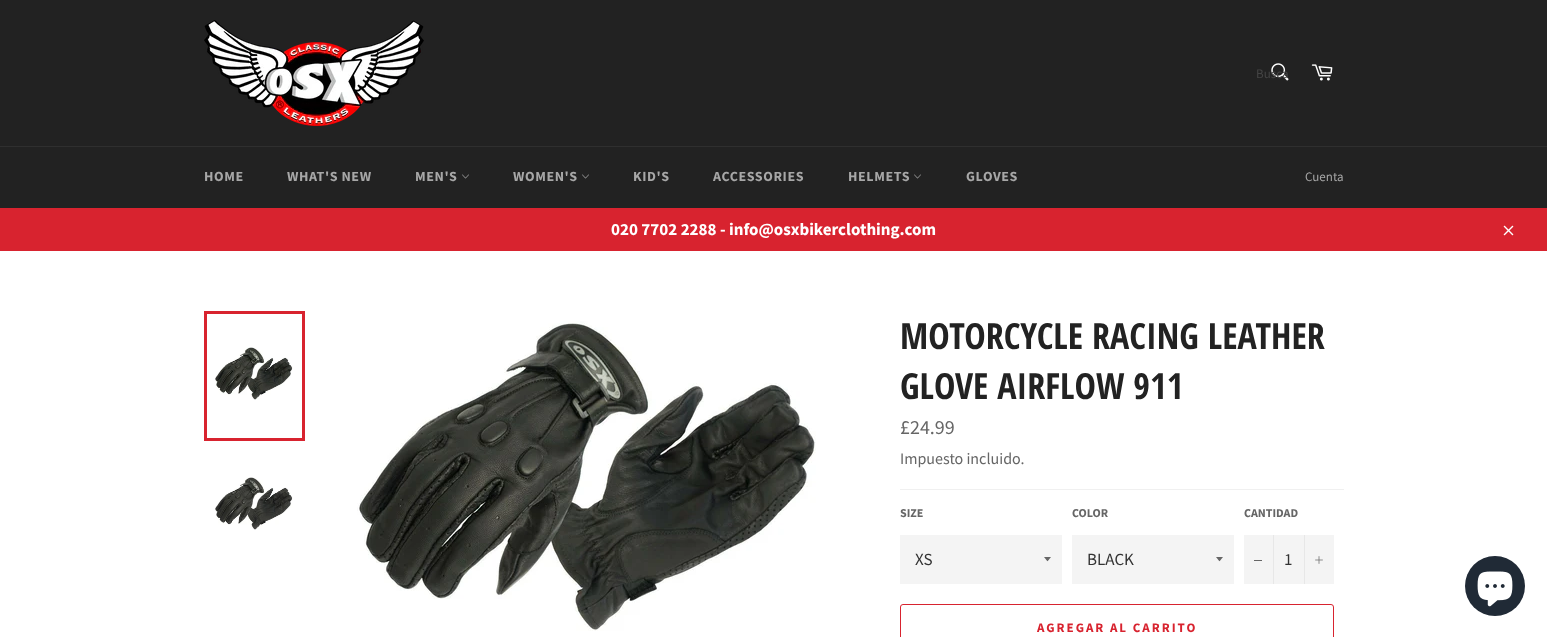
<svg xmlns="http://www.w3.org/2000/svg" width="1547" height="637">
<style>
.a{font:13px Source Sans Pro;fill:#444}
.b{font:bold 14px Source Sans Pro;letter-spacing:0.6px;fill:#a7a7a7}
.c{font:13px Source Sans Pro;fill:#a7a7a7}
.d{font:bold 17px Source Sans Pro;fill:#fff}
.e{font:bold 36px Open Sans Condensed;fill:#222}
.f{font:20px Source Sans Pro;fill:#666}
.g{font:16px Source Sans Pro;fill:#666}
.h{font:bold 12px Source Sans Pro;fill:#666}
.i{font:17px Source Sans Pro;fill:#333}
.j{font:bold 13px Source Sans Pro;letter-spacing:2px;fill:#d8232f}
</style>
<defs>
<clipPath id="clip1"><path d="M1256 65h32v17H1256z"/></clipPath>
</defs>
<rect width="100%" height="100%" fill="#222"/>
<image href="1.png" x="204" y="20" width="220" height="106"/>
<image href="2.png" x="1271" y="63" width="18" height="18"/>
<image href="3.png" x="1311" y="64" width="22" height="17"/>
<path fill="#2f2f2f" d="M0 146h1547v1H0z"/>
<image href="4.png" x="462" y="174" width="7" height="5"/>
<image href="4.png" x="582" y="174" width="7" height="5"/>
<image href="4.png" x="914" y="174" width="7" height="5"/>
<path fill="#d8232f" d="M0 208h1547v43H0z"/>
<image href="5.png" x="1503" y="225" width="11" height="11"/>
<path fill="#fff" d="M0 251h1547v386H0z"/>
<image href="6.png" x="215" y="347" width="78" height="53"/>
<path fill="none" stroke="#d8232f" stroke-width="3" d="M205.5 312.5h98v127H205.5z"/>
<image href="7.png" x="215" y="477" width="78" height="53"/>
<image href="8.png" x="357" y="321" width="459" height="310"/>
<path fill="#f0f0f0" d="M900 489h444v1H900z"/>
<path fill="#f4f4f4" d="M900 535h162v49H900z"/>
<path fill="#666" d="M1044 557c4.5 5.5 2.5 5.5 7 0z"/>
<path fill="#f4f4f4" d="M1072 535h162v49H1072z"/>
<path fill="#666" d="M1216 557c4.5 5.5 2.5 5.5 7 0z"/>
<path fill="#f4f4f4" d="M1244 535h90v49H1244z"/>
<path fill="#e7e7e7" d="M1273 535h1v49H1273z"/>
<path fill="#666" d="M1254 560h8v1H1254z"/>
<path fill="#e7e7e7" d="M1304 535h1v49H1304z"/>
<image href="9.png" x="1315" y="556" width="8" height="8"/>
<rect fill="none" stroke="#d8232f" x="900.5" y="604.5" width="433" height="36" rx="2.5"/>
<circle fill="#202a36" cx="1495" cy="586" r="30"/>
<image href="10.png" x="1477" y="571" width="36" height="36"/>
<g clip-path="url(#clip1)">
<text class="a" x="1256" y="78">Busca</text>
</g>
<text class="b" x="204" y="181">HOME</text>
<text class="b" x="287" y="181">WHAT'S NEW</text>
<text class="b" x="415" y="181">MEN'S</text>
<text class="b" x="513" y="181">WOMEN'S</text>
<text class="b" x="633" y="181">KID'S</text>
<text class="b" x="713" y="181">ACCESSORIES</text>
<text class="b" x="848" y="181">HELMETS</text>
<text class="b" x="966" y="181">GLOVES</text>
<text class="c" x="1305" y="181">Cuenta</text>
<text class="d" x="611" y="235">020 7702 2288 - info@osxbikerclothing.com</text>
<text class="e" x="900" y="349">MOTORCYCLE RACING LEATHER</text>
<text class="e" x="900" y="399">GLOVE AIRFLOW 911</text>
<text class="f" x="900" y="434">£24.99</text>
<text class="g" x="900" y="464">Impuesto incluido.</text>
<text class="h" x="900" y="517">SIZE</text>
<text class="i" x="915" y="565">XS</text>
<text class="h" x="1072" y="517">COLOR</text>
<text class="i" x="1087" y="565">BLACK</text>
<text class="h" x="1244" y="517">CANTIDAD</text>
<text class="i" x="1284" y="565">1</text>
<text class="j" x="1037" y="632">AGREGAR AL CARRITO</text>
</svg>
